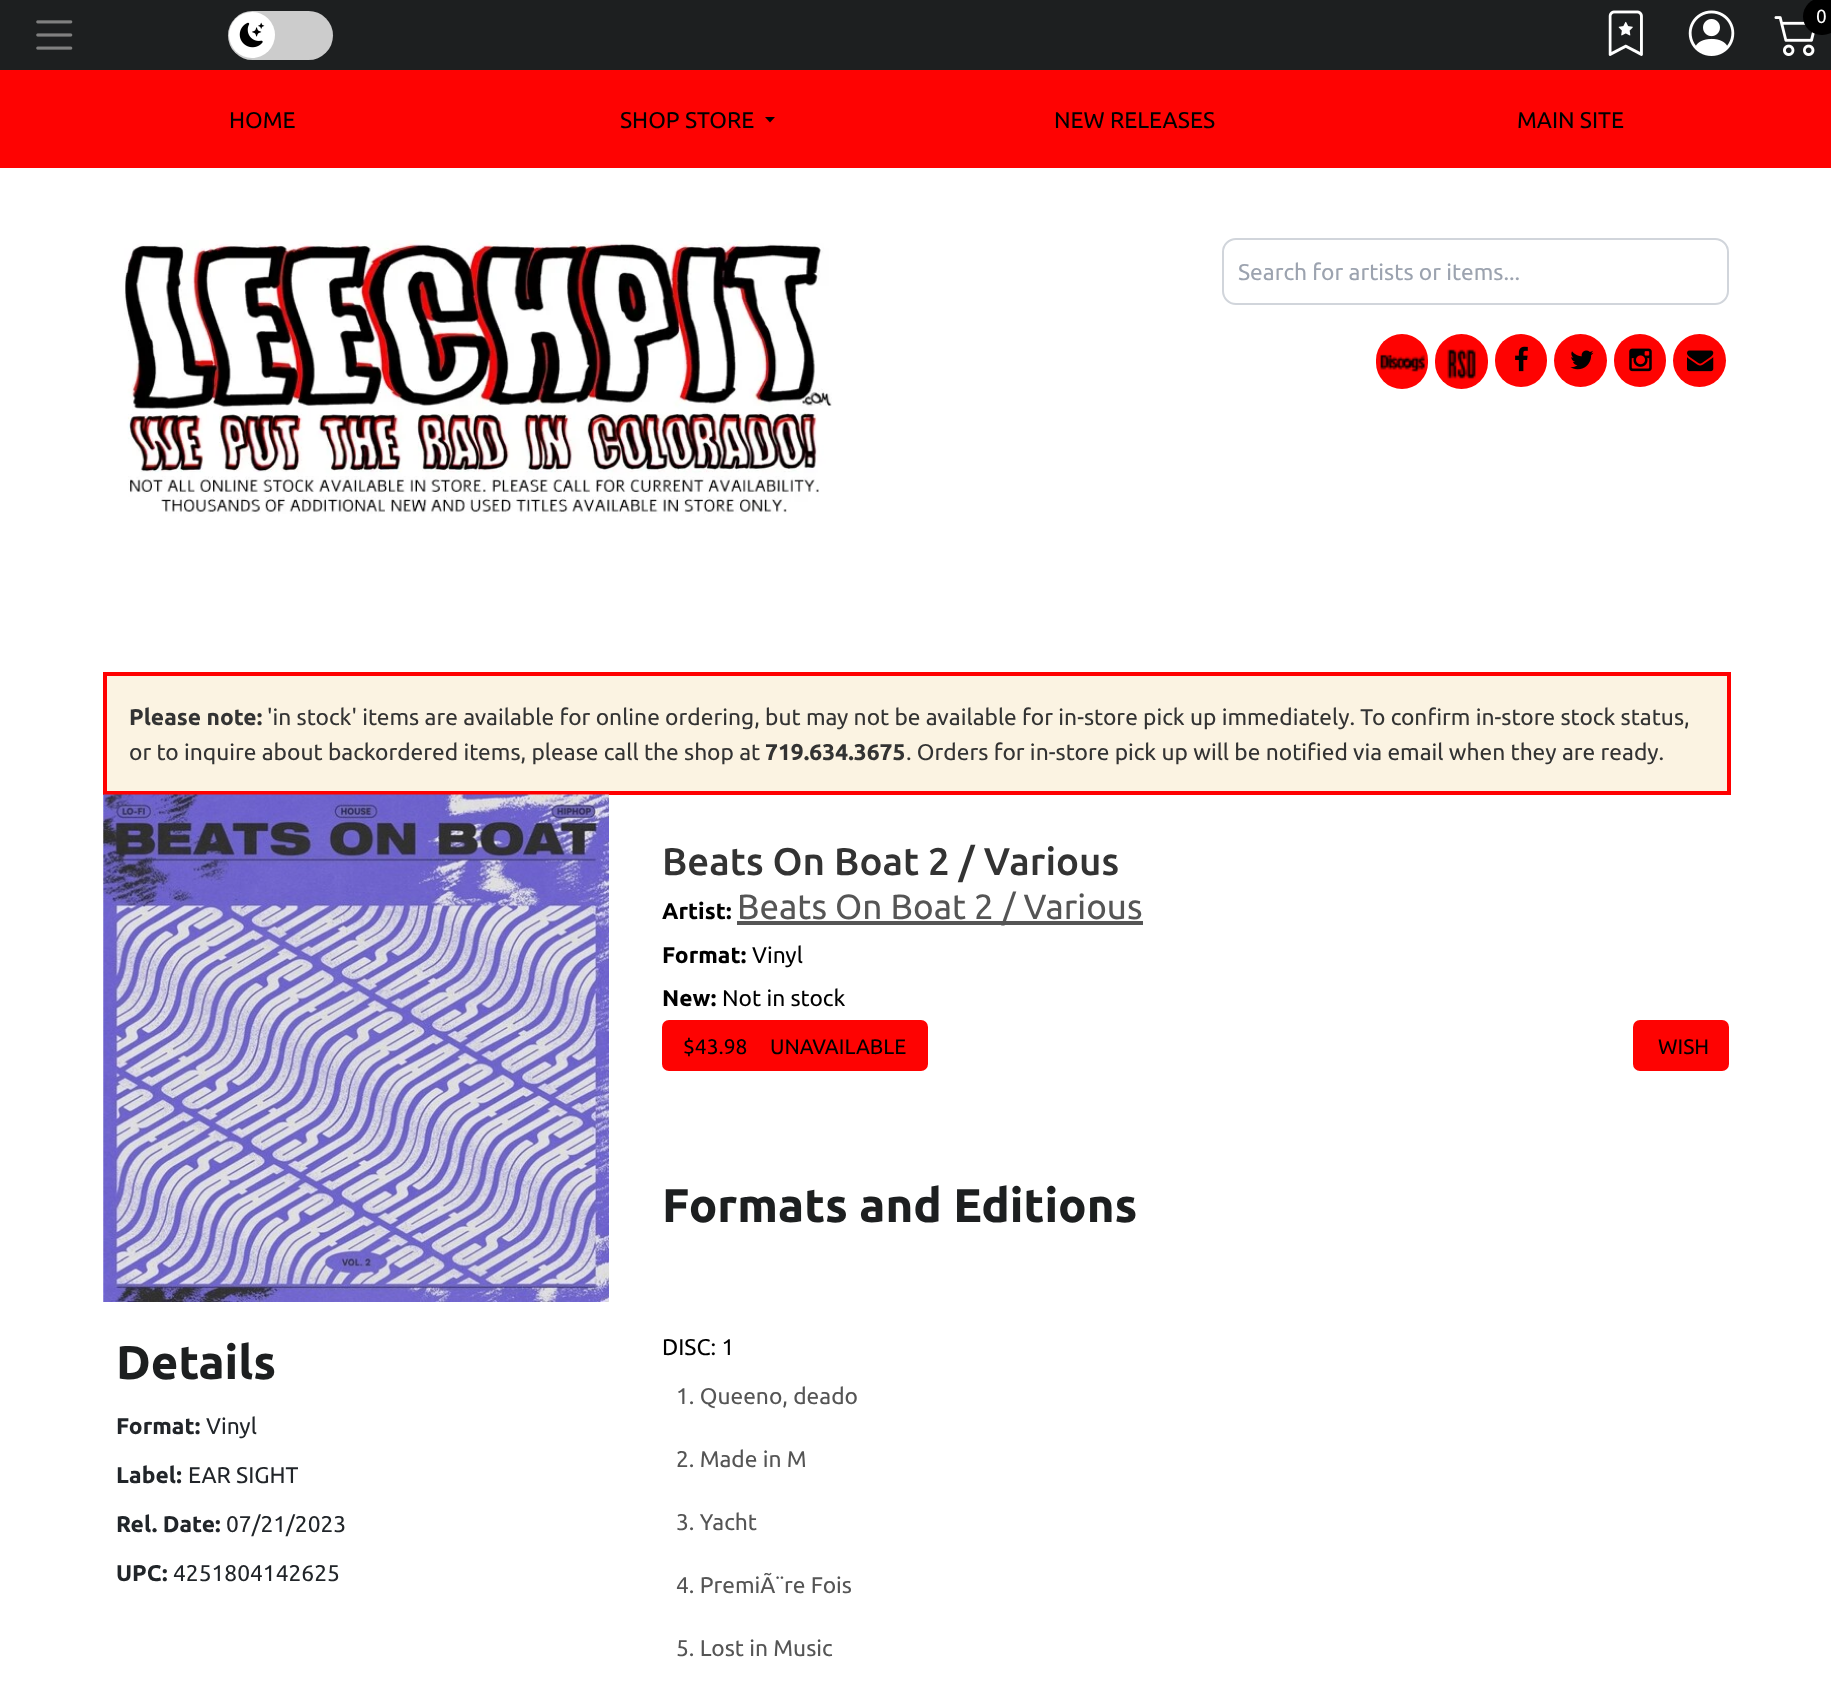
<svg xmlns="http://www.w3.org/2000/svg" width="1831" height="1688">
<style>
.a{font:19px Ubuntu;fill:#fff}
.b{font:22.75px Ubuntu;fill:#000}
.c{font:22.75px Ubuntu;fill:#9ca3af}
.d{font:bold 22.75px Ubuntu;fill:#333}
.e{font:22.75px Ubuntu;fill:#333}
.f{font:bold 47.25px Ubuntu;fill:#1d1f20}
.g{font:bold 22.75px Ubuntu;fill:#212529}
.h{font:22.75px Ubuntu;fill:#212529}
.i{font:500 38.5px Ubuntu;fill:#333}
.j{font:bold 22.75px Ubuntu;fill:#000}
.k{font:35px Ubuntu;fill:#555}
.l{font:21px Ubuntu;fill:#000}
.m{font:22.75px Ubuntu;fill:#555}
</style>
<rect width="100%" height="100%" fill="#fff"/>
<path fill="#1d1f20" d="M0 0h1831v70H0z"/>
<image href="1.png" x="36" y="20" width="37" height="30"/>
<rect fill="#ccc" x="228" y="11" width="105" height="49" rx="24.5"/>
<circle fill="#fff" cx="252" cy="35" r="23"/>
<image href="2.png" x="239" y="22" width="26" height="26"/>
<image href="3.png" x="1608" y="10" width="35" height="46"/>
<image href="4.png" x="1688" y="10" width="47" height="46"/>
<image href="5.png" x="1774" y="16" width="41" height="40"/>
<rect fill="#000" x="1803" y="-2" width="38" height="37" rx="18.5"/>
<path fill="#fe0302" d="M0 70h1831v98H0z"/>
<path fill="#000" d="M765 117h10l-5 5.5z"/>
<image href="6.png" x="124" y="240" width="708" height="274"/>
<rect fill="none" stroke="#d1d5db" stroke-width="2" x="1223" y="239" width="505" height="65" rx="13"/>
<rect fill="#fe0302" x="1376" y="334" width="52" height="55" rx="26"/>
<image href="7.png" x="1380" y="354" width="45" height="18"/>
<rect fill="#fe0302" x="1435" y="334" width="53" height="55" rx="26.5"/>
<image href="8.png" x="1447" y="349" width="29" height="30"/>
<rect fill="#fe0302" x="1495" y="334" width="52" height="53" rx="26"/>
<image href="9.png" x="1515" y="346" width="13" height="26"/>
<circle fill="#fe0302" cx="1580.5" cy="360.5" r="26.5"/>
<image href="10.png" x="1570" y="350" width="24" height="20"/>
<rect fill="#fe0302" x="1614" y="334" width="52" height="53" rx="26"/>
<image href="11.png" x="1629" y="348" width="23" height="24"/>
<circle fill="#fe0302" cx="1699.5" cy="360.5" r="26.5"/>
<image href="12.png" x="1687" y="350" width="27" height="22"/>
<path fill="#fbf3e2" stroke="#f00" stroke-width="4" d="M105 674h1624v119H105z"/>
<image href="13.png" x="103" y="794" width="506" height="508"/>
<path fill="#555" d="M737 921h406v4H737z"/>
<rect fill="#fe0302" x="662" y="1020" width="266" height="51" rx="7"/>
<rect fill="#fe0302" x="1633" y="1020" width="96" height="51" rx="7"/>
<text class="a" x="1816" y="23">0</text>
<text class="b" x="229" y="128">HOME</text>
<text class="b" x="620" y="128">SHOP STORE</text>
<text class="b" x="1054" y="128">NEW RELEASES</text>
<text class="b" x="1517" y="128">MAIN SITE</text>
<text class="c" x="1238" y="280">Search for artists or items...</text>
<text class="d" x="129" y="725">Please note:</text>
<text class="e" x="267" y="725">'in stock' items are available for online ordering, but may not be available for in-store pick up immediately. To confirm in-store stock status,</text>
<text class="e" x="129" y="760">or to inquire about backordered items, please call the shop at</text>
<text class="d" x="765" y="760">719.634.3675</text>
<text class="e" x="906" y="760">. Orders for in-store pick up will be notified via email when they are ready.</text>
<text class="f" x="116" y="1379">Details</text>
<text class="g" x="116" y="1434">Format:</text>
<text class="h" x="206" y="1434">Vinyl</text>
<text class="g" x="116" y="1483">Label:</text>
<text class="h" x="188" y="1483">EAR SIGHT</text>
<text class="g" x="116" y="1532">Rel. Date:</text>
<text class="h" x="226" y="1532">07/21/2023</text>
<text class="g" x="116" y="1581">UPC:</text>
<text class="h" x="173" y="1581">4251804142625</text>
<text class="i" x="662" y="875">Beats On Boat 2 / Various</text>
<text class="j" x="662" y="919">Artist:</text>
<text class="k" x="737" y="919">Beats On Boat 2 / Various</text>
<text class="j" x="662" y="963">Format:</text>
<text class="b" x="752" y="963">Vinyl</text>
<text class="j" x="662" y="1006">New:</text>
<text class="b" x="722" y="1006">Not in stock</text>
<text class="l" x="683" y="1054">$43.98</text>
<text class="l" x="770" y="1054">UNAVAILABLE</text>
<text class="l" x="1658" y="1054">WISH</text>
<text class="f" x="662" y="1222">Formats and Editions</text>
<text class="b" x="662" y="1355">DISC: 1</text>
<text class="m" x="676" y="1404">1. Queeno, deado</text>
<text class="m" x="676" y="1467">2. Made in M</text>
<text class="m" x="676" y="1530">3. Yacht</text>
<text class="m" x="676" y="1593">4. PremiÃ¨re Fois</text>
<text class="m" x="676" y="1656">5. Lost in Music</text>
</svg>
